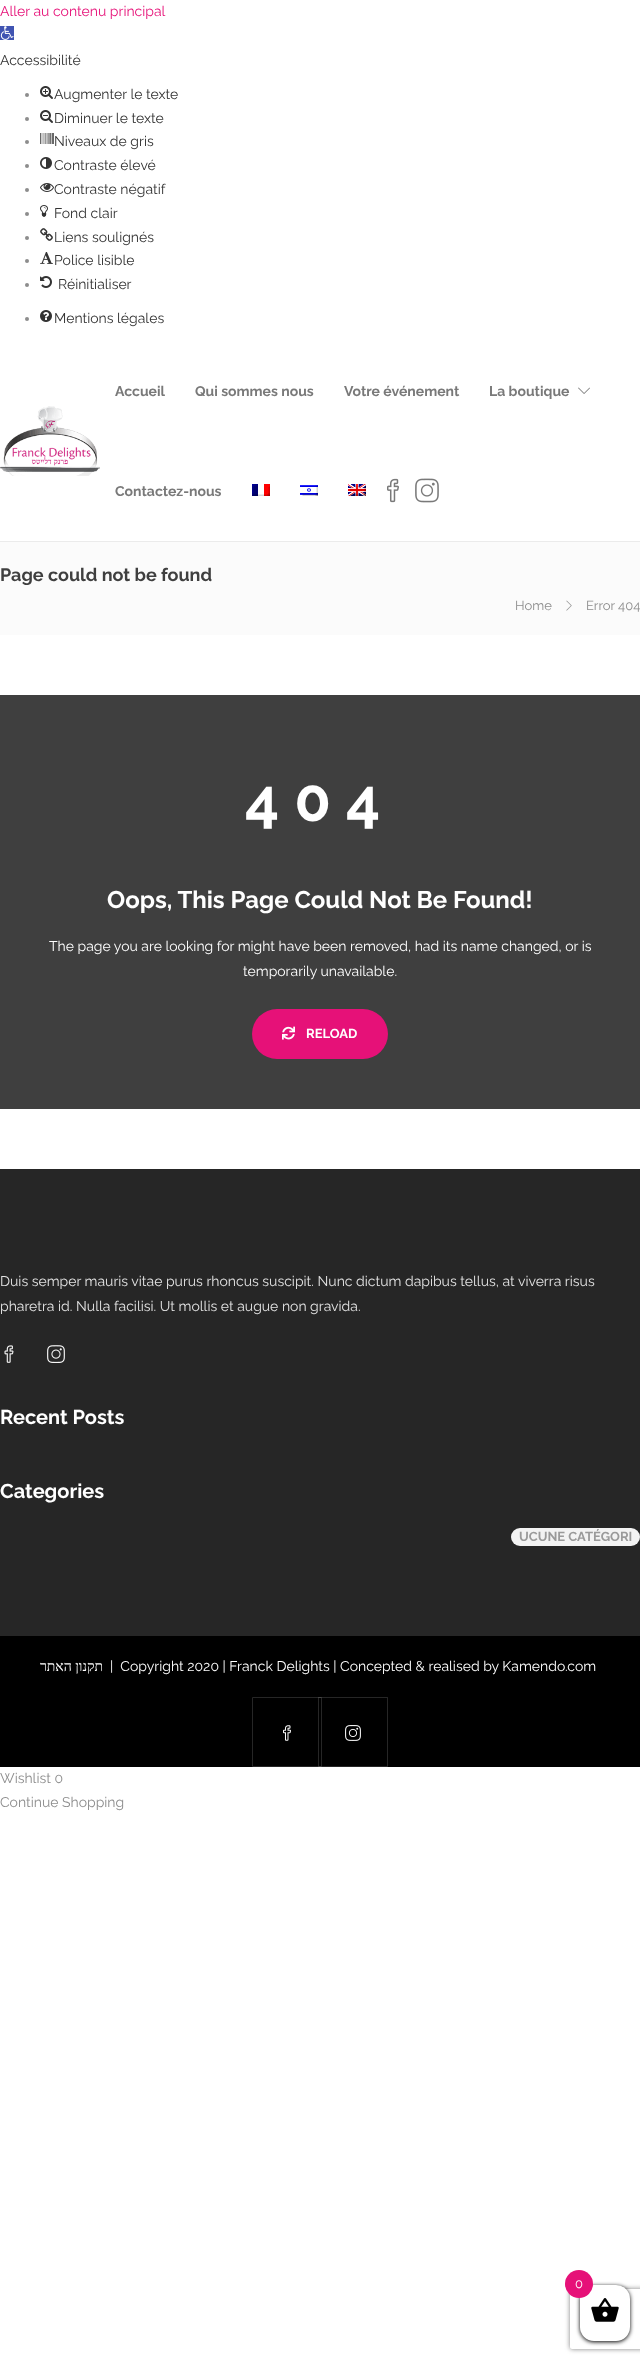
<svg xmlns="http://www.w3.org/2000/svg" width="640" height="2363">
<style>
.a{font:14px Raleway;fill:#e61178}
.b{font:14px Raleway;fill:#333}
.c{font:bold 14px Raleway;fill:#797979}
.d{font:bold 18px Raleway;fill:#3f3f3f}
.e{font:13px Raleway;fill:#8d8d8d}
.f{font:bold 60px Raleway;letter-spacing:15px;fill:#fff}
.g{font:bold 24px Raleway;fill:#fff}
.h{font:14px Raleway;fill:#fff}
.i{font:bold 13px Raleway;fill:#fff}
.j{font:14px Raleway;fill:#e3e3e3}
.k{font:bold 20px Raleway;fill:#fff}
.l{font:bold 13px Raleway;fill:#9a9a9a}
.m{font:14px Liberation Serif;direction:rtl;fill:#fff}
.n{font:14px Raleway;fill:#8d8d8d}
.o{font:13px Raleway;fill:#fff}
</style>
<defs>
<clipPath id="clip1"><path d="M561 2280h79v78h-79zm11 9h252c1 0 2 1 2 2v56c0 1-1 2-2 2h-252c-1 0-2-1-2-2v-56c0-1 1-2 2-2z" clip-rule="evenodd"/></clipPath>
</defs>
<rect width="100%" height="100%" fill="#fff"/>
<path fill="#4054b2" d="M0 26h14v14H0z"/>
<image href="1.png" x="0" y="26" width="14" height="14"/>
<circle fill="#8d8d8d" cx="27" cy="95" r="2"/>
<image href="2.png" x="40" y="86" width="13" height="13"/>
<circle fill="#8d8d8d" cx="27" cy="119" r="2"/>
<image href="3.png" x="40" y="110" width="13" height="13"/>
<circle fill="#8d8d8d" cx="27" cy="142" r="2"/>
<image href="4.png" x="40" y="133" width="14" height="11"/>
<circle fill="#8d8d8d" cx="27" cy="166" r="2"/>
<image href="5.png" x="40" y="157" width="12" height="12"/>
<circle fill="#8d8d8d" cx="27" cy="190" r="2"/>
<image href="6.png" x="40" y="183" width="14" height="9"/>
<circle fill="#8d8d8d" cx="27" cy="214" r="2"/>
<image href="7.png" x="40" y="205" width="8" height="12"/>
<circle fill="#8d8d8d" cx="27" cy="238" r="2"/>
<image href="8.png" x="40" y="228" width="13" height="13"/>
<circle fill="#8d8d8d" cx="27" cy="261" r="2"/>
<image href="9.png" x="40" y="252" width="13" height="12"/>
<circle fill="#8d8d8d" cx="27" cy="285" r="2"/>
<image href="10.png" x="40" y="276" width="12" height="12"/>
<circle fill="#8d8d8d" cx="27" cy="319" r="2"/>
<image href="11.png" x="40" y="310" width="12" height="12"/>
<path fill="#ebebeb" d="M0 541h640v1H0z"/>
<image href="12.png" x="0" y="406" width="100" height="70"/>
<image href="13.png" x="578" y="387" width="12" height="7"/>
<image href="14.png" x="252" y="484" width="18" height="12"/>
<image href="15.png" x="300" y="485" width="18" height="11"/>
<image href="16.png" x="348" y="484" width="18" height="12"/>
<image href="17.png" x="387" y="478" width="12" height="25"/>
<image href="18.png" x="415" y="478" width="24" height="25"/>
<path fill="#fbfbfb" d="M0 542h640v93H0z"/>
<image href="19.png" x="566" y="600" width="6" height="11"/>
<path fill="#3f3f3f" d="M0 695h640v414H0z"/>
<rect fill="#e61178" x="252" y="1009" width="136" height="50" rx="25"/>
<image href="20.png" x="282" y="1026" width="13" height="14"/>
<path fill="#262626" d="M0 1169h640v467H0z"/>
<image href="21.png" x="4" y="1345" width="10" height="18"/>
<image href="22.png" x="47" y="1345" width="18" height="18"/>
<rect fill="#f3f3f3" x="511" y="1528" width="129" height="18" rx="9"/>
<path fill="#000" d="M0 1636h640v131H0z"/>
<path fill="none" stroke="#262626" d="M252.5 1697.5h69v69H252.5z"/>
<image href="23.png" x="283" y="1725" width="8" height="16"/>
<path fill="none" stroke="#ffffff26" d="M318.5 1697.5h69v69H318.5z"/>
<image href="24.png" x="345" y="1725" width="16" height="16"/>
<g clip-path="url(#clip1)">
<rect fill="#808080" filter="blur(2.5px)" x="570" y="2289" width="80" height="60" rx="2"/>
</g>
<rect fill="#000" filter="blur(2px)" x="580" y="2286" width="50" height="56" rx="14"/>
<rect fill="#fff" x="580" y="2285" width="50" height="56" rx="14"/>
<circle fill="#e61178" cx="579" cy="2284" r="14"/>
<image href="25.png" x="591" y="2298" width="28" height="24"/>
<text class="a" x="0" y="16">Aller au contenu principal</text>
<text class="b" x="0" y="65">Accessibilité</text>
<text class="b" x="54" y="99">Augmenter le texte</text>
<text class="b" x="54" y="123">Diminuer le texte</text>
<text class="b" x="54" y="146">Niveaux de gris</text>
<text class="b" x="54" y="170">Contraste élevé</text>
<text class="b" x="54" y="194">Contraste négatif</text>
<text class="b" x="54" y="218">Fond clair</text>
<text class="b" x="54" y="242">Liens soulignés</text>
<text class="b" x="54" y="265">Police lisible</text>
<text class="b" x="58" y="289">Réinitialiser</text>
<text class="b" x="54" y="323">Mentions légales</text>
<text class="c" x="115" y="396">Accueil</text>
<text class="c" x="195" y="396">Qui sommes nous</text>
<text class="c" x="344" y="396">Votre événement</text>
<text class="c" x="489" y="396">La boutique</text>
<text class="c" x="115" y="496">Contactez-nous</text>
<text class="d" x="0" y="581">Page could not be found</text>
<text class="e" x="515" y="610">Home</text>
<text class="e" x="586" y="610">Error 404</text>
<text class="f" x="245" y="821">404</text>
<text class="g" x="107" y="908">Oops, This Page Could Not Be Found!</text>
<text class="h" x="49" y="951">The page you are looking for might have been removed, had its name changed, or is</text>
<text class="h" x="243" y="976">temporarily unavailable.</text>
<text class="i" x="306" y="1038">RELOAD</text>
<text class="j" x="0" y="1286">Duis semper mauris vitae purus rhoncus suscipit. Nunc dictum dapibus tellus, at viverra risus</text>
<text class="j" x="0" y="1311">pharetra id. Nulla facilisi. Ut mollis et augue non gravida.</text>
<text class="k" x="0" y="1424">Recent Posts</text>
<text class="k" x="0" y="1498">Categories</text>
<text class="l" x="519" y="1541">UCUNE CATÉGORI</text>
<text class="m" x="103" y="1671">תקנון האתר</text>
<text class="h" xml:space="preserve" x="110" y="1671">|  Copyright 2020 | Franck Delights | Concepted &amp; realised by Kamendo.com</text>
<text class="n" x="0" y="1783">Wishlist 0</text>
<text class="n" x="0" y="1807">Continue Shopping</text>
<text class="o" x="575" y="2288">0</text>
</svg>
